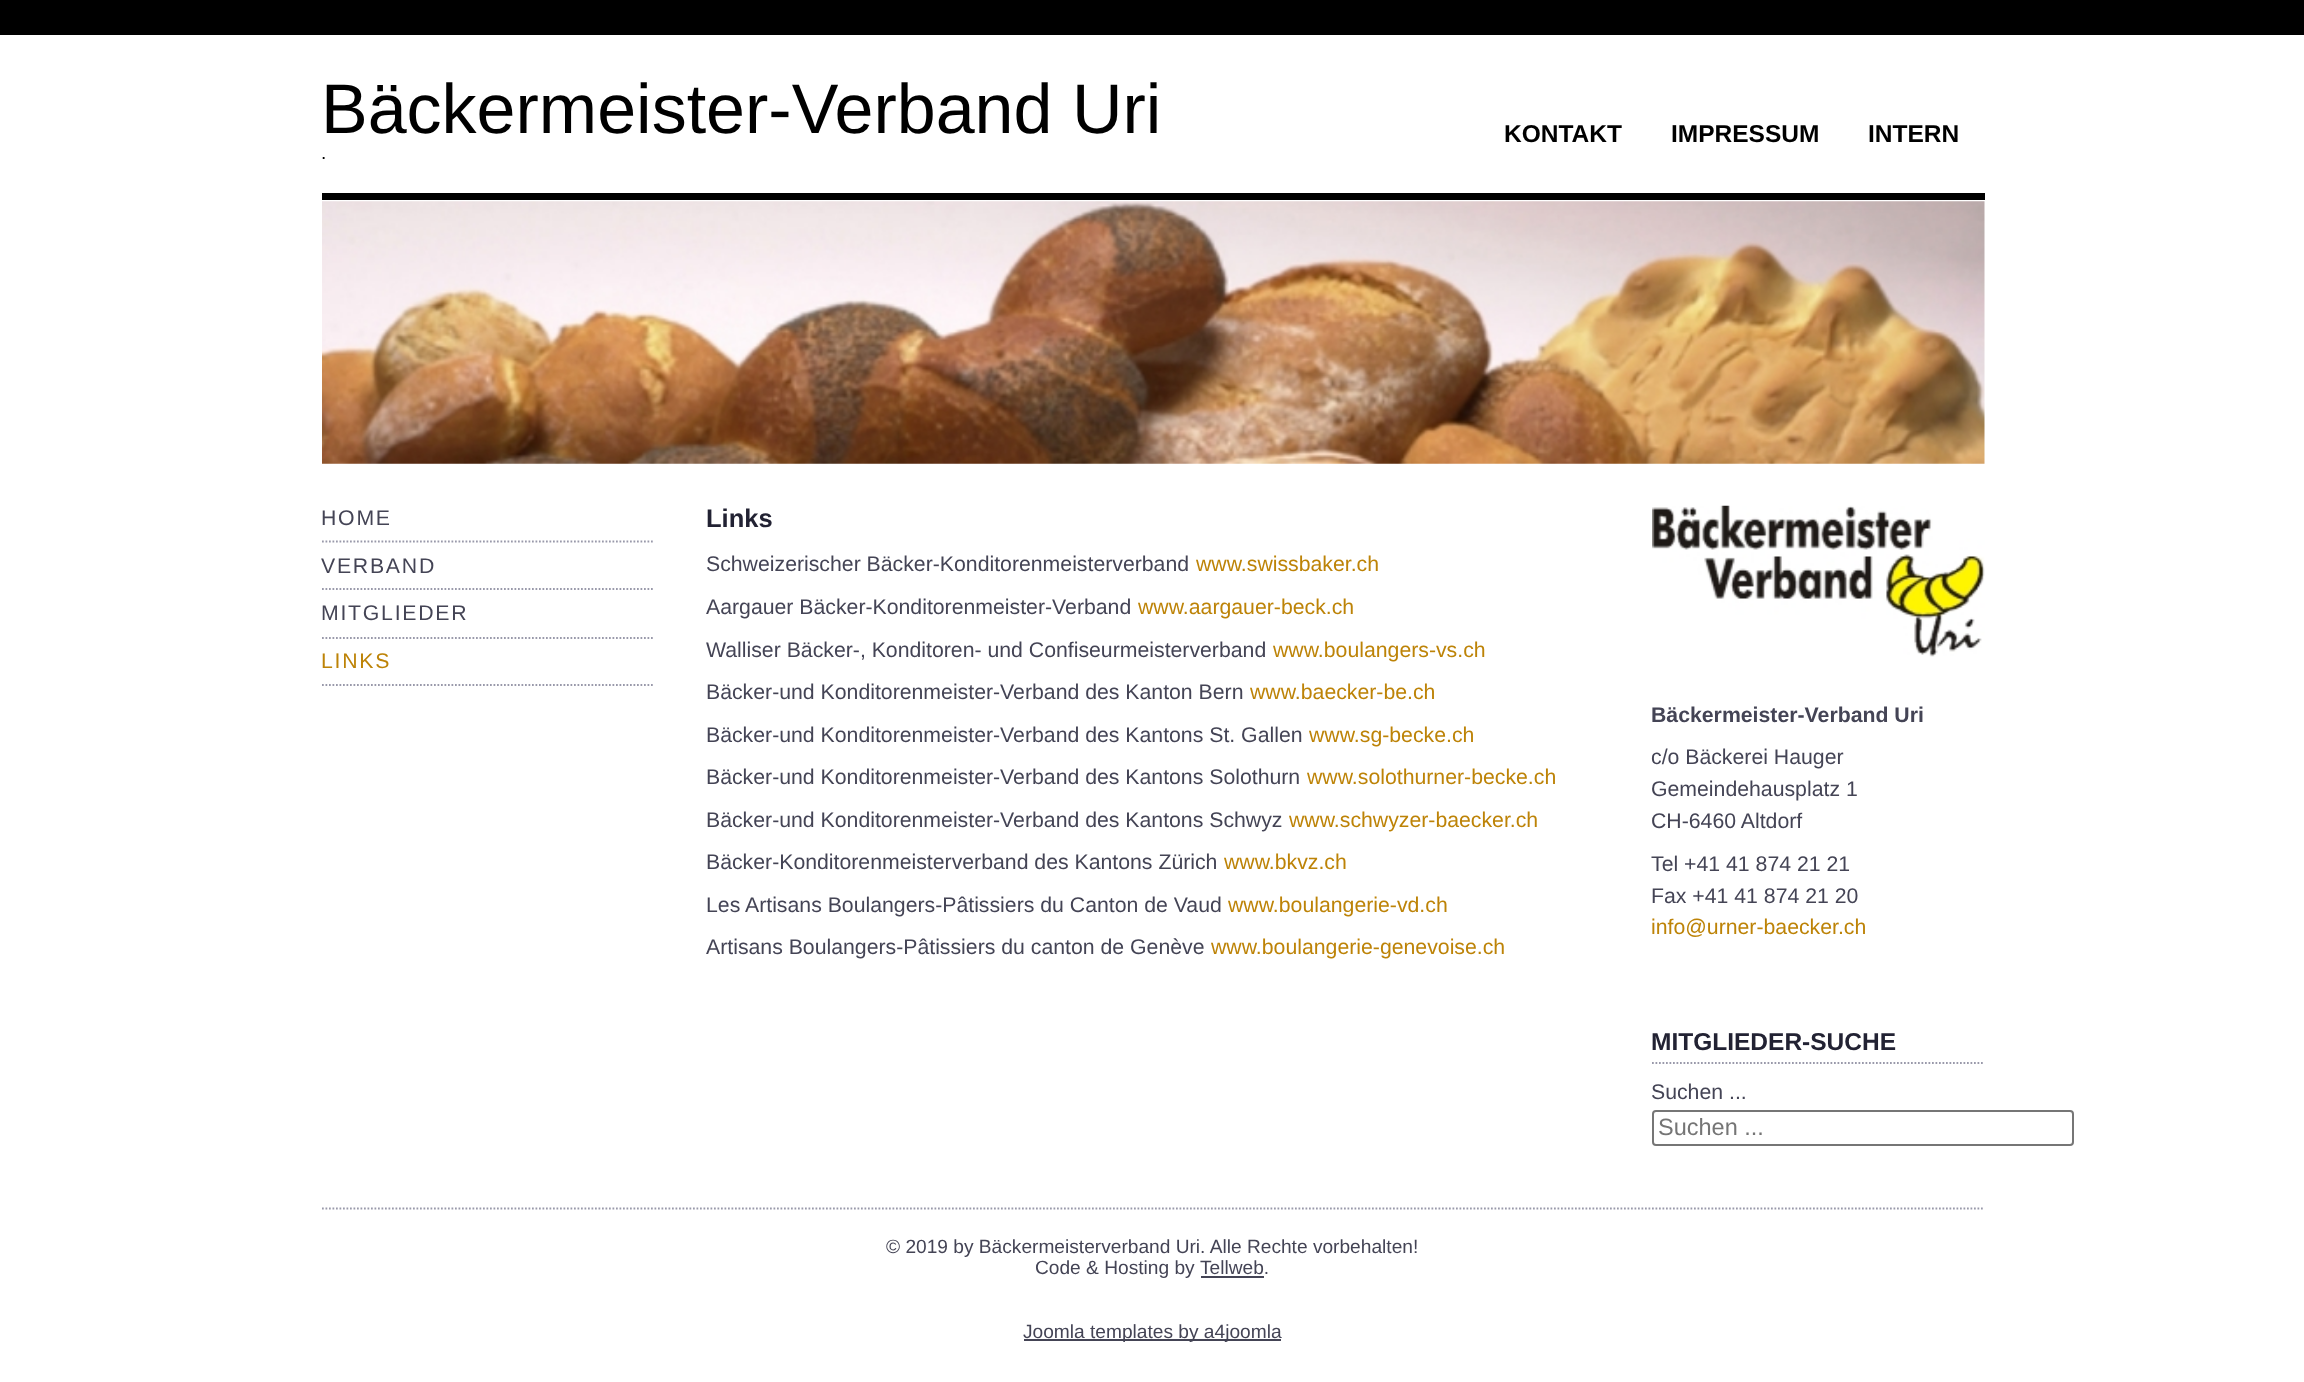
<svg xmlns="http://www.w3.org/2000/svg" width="2304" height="1382">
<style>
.a{font:70px Liberation Sans;fill:#000}
.b{font:19px Liberation Sans;fill:#000}
.c{font:bold 24.5px Liberation Sans;fill:#000}
.d{font:21.25px Liberation Sans;letter-spacing:1.75px;fill:#445}
.e{font:21.25px Liberation Sans;letter-spacing:1.75px;fill:#bd8307}
.f{font:bold 25.5px Liberation Sans;fill:#223}
.g{font:21.25px Liberation Sans;fill:#445}
.h{font:21.25px Liberation Sans;fill:#bd8307}
.i{font:bold 21.25px Liberation Sans;fill:#445}
.j{font:bold 24.5px Liberation Sans;fill:#223}
.k{font:23.5px Liberation Sans;fill:#757575}
.l{font:19.15px Liberation Sans;fill:#445}
</style>
<rect width="100%" height="100%" fill="#fff"/>
<path fill="#000" d="M0 0h2304v35H0z"/>
<path fill="#000" d="M322 193h1663v7H322z"/>
<image href="1.png" x="322" y="201" width="1663" height="263"/>
<path fill="none" stroke="#99a" stroke-width="1.8" stroke-dasharray="1.75 1.75" d="M322 541.5h332.5"/>
<path fill="none" stroke="#99a" stroke-width="1.8" stroke-dasharray="1.75 1.75" d="M322 589h332.5"/>
<path fill="none" stroke="#99a" stroke-width="1.8" stroke-dasharray="1.75 1.75" d="M322 638h332.5"/>
<path fill="none" stroke="#99a" stroke-width="1.8" stroke-dasharray="1.75 1.75" d="M322 685h332.5"/>
<image href="2.png" x="1652" y="505" width="333" height="152"/>
<path fill="none" stroke="#99a" stroke-width="1.8" stroke-dasharray="1.75 1.75" d="M1652 1063h332.5"/>
<rect fill="none" stroke="#767676" stroke-width="2" x="1653" y="1111" width="420" height="34" rx="3"/>
<path fill="none" stroke="#99a" stroke-width="1.8" stroke-dasharray="1.75 1.75" d="M322 1208.5h1662.5"/>
<path fill="#445" d="M1201 1276h63v2H1201z"/>
<path fill="#445" d="M1024 1339h257v2H1024z"/>
<text class="a" x="321" y="133">Bäckermeister-Verband Uri</text>
<text class="b" x="321" y="159">.</text>
<text class="c" x="1504" y="142">KONTAKT</text>
<text class="c" x="1671" y="142">IMPRESSUM</text>
<text class="c" x="1868" y="142">INTERN</text>
<text class="d" x="321" y="525">HOME</text>
<text class="d" x="321" y="573">VERBAND</text>
<text class="d" x="321" y="620">MITGLIEDER</text>
<text class="e" x="321" y="668">LINKS</text>
<text class="f" x="706" y="527">Links</text>
<text class="g" x="706" y="571">Schweizerischer Bäcker-Konditorenmeisterverband</text>
<text class="h" x="1196" y="571">www.swissbaker.ch</text>
<text class="g" x="706" y="614">Aargauer Bäcker-Konditorenmeister-Verband</text>
<text class="h" x="1138" y="614">www.aargauer-beck.ch</text>
<text class="g" x="706" y="657">Walliser Bäcker-, Konditoren- und Confiseurmeisterverband</text>
<text class="h" x="1273" y="657">www.boulangers-vs.ch</text>
<text class="g" x="706" y="699">Bäcker-und Konditorenmeister-Verband des Kanton Bern</text>
<text class="h" x="1250" y="699">www.baecker-be.ch</text>
<text class="g" x="706" y="742">Bäcker-und Konditorenmeister-Verband des Kantons St. Gallen</text>
<text class="h" x="1309" y="742">www.sg-becke.ch</text>
<text class="g" x="706" y="784">Bäcker-und Konditorenmeister-Verband des Kantons Solothurn</text>
<text class="h" x="1307" y="784">www.solothurner-becke.ch</text>
<text class="g" x="706" y="827">Bäcker-und Konditorenmeister-Verband des Kantons Schwyz</text>
<text class="h" x="1289" y="827">www.schwyzer-baecker.ch</text>
<text class="g" x="706" y="869">Bäcker-Konditorenmeisterverband des Kantons Zürich</text>
<text class="h" x="1224" y="869">www.bkvz.ch</text>
<text class="g" x="706" y="912">Les Artisans Boulangers-Pâtissiers du Canton de Vaud</text>
<text class="h" x="1228" y="912">www.boulangerie-vd.ch</text>
<text class="g" x="706" y="954">Artisans Boulangers-Pâtissiers du canton de Genève</text>
<text class="h" x="1211" y="954">www.boulangerie-genevoise.ch</text>
<text class="i" x="1651" y="722">Bäckermeister-Verband Uri</text>
<text class="g" x="1651" y="764">c/o Bäckerei Hauger</text>
<text class="g" x="1651" y="796">Gemeindehausplatz 1</text>
<text class="g" x="1651" y="828">CH-6460 Altdorf</text>
<text class="g" x="1651" y="871">Tel +41 41 874 21 21</text>
<text class="g" x="1651" y="903">Fax +41 41 874 21 20</text>
<text class="h" x="1651" y="934">info@urner-baecker.ch</text>
<text class="j" x="1651" y="1050">MITGLIEDER-SUCHE</text>
<text class="g" x="1651" y="1099">Suchen ...</text>
<text class="k" x="1658" y="1135">Suchen ...</text>
<text class="l" x="886" y="1253">© 2019 by Bäckermeisterverband Uri. Alle Rechte vorbehalten!</text>
<text class="l" x="1035" y="1274">Code &amp; Hosting by</text>
<text class="l" x="1200" y="1274">Tellweb.</text>
<text class="l" x="1023" y="1338">Joomla templates by a4joomla</text>
</svg>
